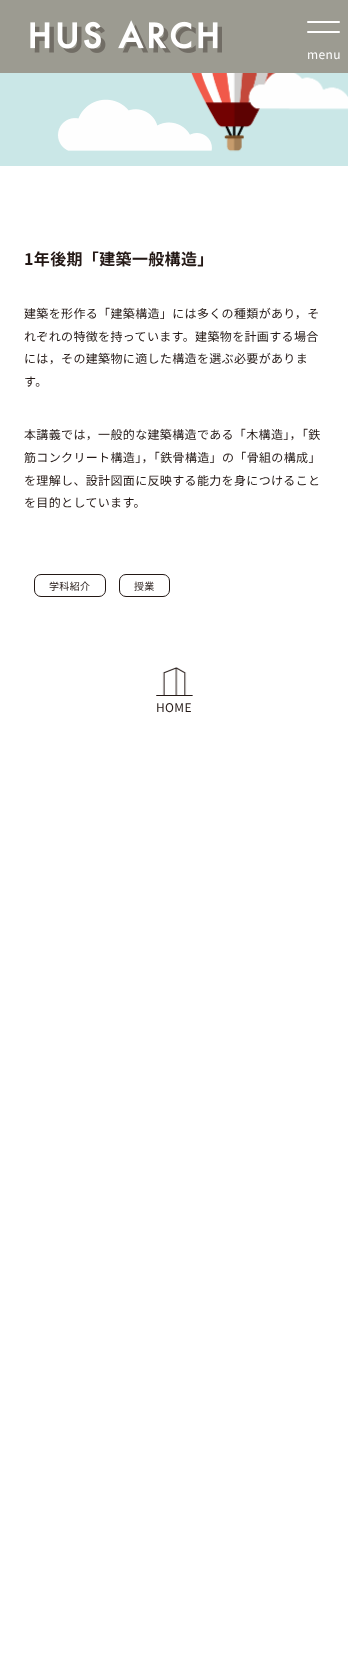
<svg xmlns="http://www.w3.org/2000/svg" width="348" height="1660">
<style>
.a{font:12px Noto Sans JP;letter-spacing:0.35px;fill:#fff}
.b{font:bold 16px Noto Sans JP;letter-spacing:0.35px;fill:#231815}
.c{font:12px Noto Sans JP;letter-spacing:0.35px;fill:#231815}
.d{font:10px Noto Sans JP;letter-spacing:0.35px;fill:#231815}
</style>
<rect width="100%" height="100%" fill="#cae7e7"/>
<image href="1.png" x="57" y="73" width="291" height="79"/>
<path fill="#9c9b91" d="M0 0h348v73H0z"/>
<image href="2.png" x="30" y="20" width="192" height="33"/>
<rect fill="#fff" x="307" y="21" width="33" height="2" rx="1"/>
<rect fill="#fff" x="307" y="31" width="33" height="2" rx="1"/>
<path fill="#fff" d="M0 166h348v1494H0z"/>
<rect fill="none" stroke="#231815" x="34.5" y="574.5" width="71" height="22" rx="6.5"/>
<rect fill="none" stroke="#231815" x="119.5" y="574.5" width="50" height="22" rx="6.5"/>
<image href="3.png" x="156" y="667" width="37" height="29"/>
<text class="a" x="307" y="59">menu</text>
<text class="b" x="24" y="265">1年後期「建築一般構造」</text>
<text class="c" x="24" y="318">建築を形作る「建築構造」には多くの種類があり，そ</text>
<text class="c" x="24" y="341">れぞれの特徴を持っています。建築物を計画する場合</text>
<text class="c" x="24" y="363">には，その建築物に適した構造を選ぶ必要がありま</text>
<text class="c" x="24" y="386">す。</text>
<text class="c" x="24" y="439">本講義では，一般的な建築構造である「木構造」，「鉄</text>
<text class="c" x="24" y="462">筋コンクリート構造」，「鉄骨構造」の「骨組の構成」</text>
<text class="c" x="24" y="485">を理解し、設計図面に反映する能力を身につけること</text>
<text class="c" x="24" y="507">を目的としています。</text>
<text class="d" x="49" y="590">学科紹介</text>
<text class="d" x="134" y="590">授業</text>
<text class="c" x="156" y="712">HOME</text>
</svg>
